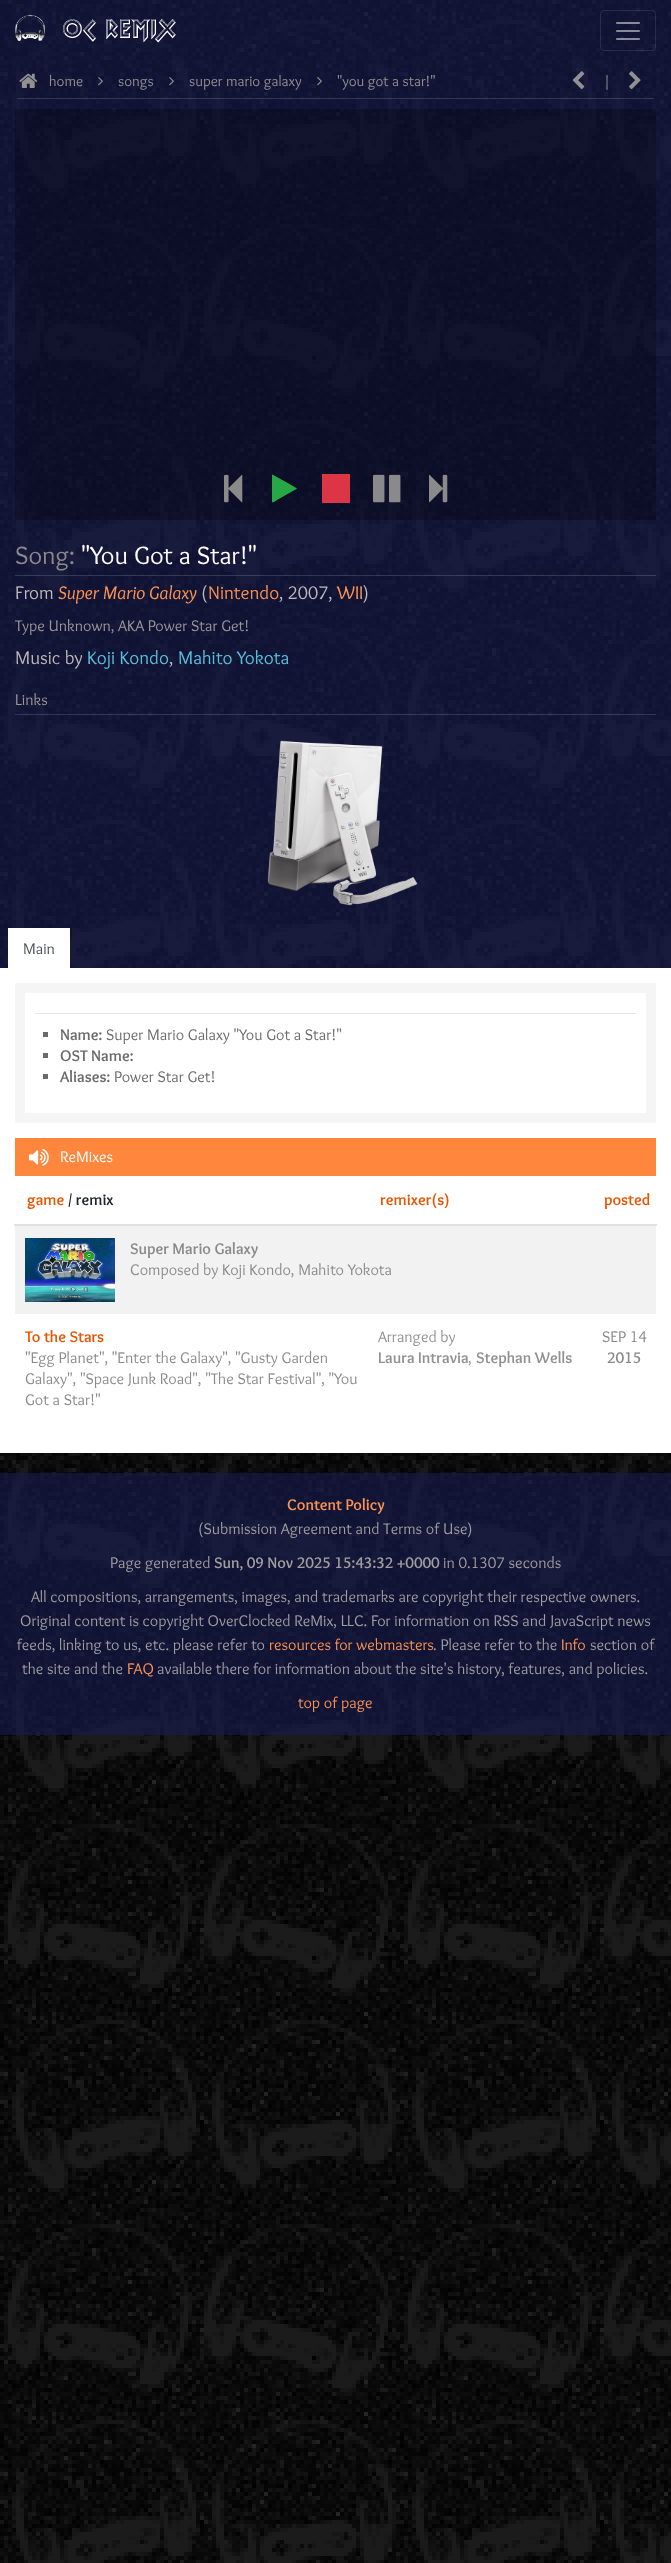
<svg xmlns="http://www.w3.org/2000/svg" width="671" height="2563">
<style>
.a{font:15px Overlock;fill:#919191}
.b{font:26px Overlock;fill:#8a8a8a}
.c{font:26px Overlock;fill:#fff}
.d{font:19px Overlock;fill:#bbb}
.e{font:italic 19px Overlock;fill:#fd9353}
.f{font:19px Overlock;fill:#fd9353}
.g{font:16px Overlock;fill:#999}
.h{font:19px Overlock;fill:#5bc0de}
.i{font:16px Overlock;fill:#495057}
.j{font:bold 16px Overlock;fill:#6a6a6a}
.k{font:16px Overlock;fill:#6a6a6a}
.l{font:16px Overlock;fill:#fff}
.m{font:bold 16px Overlock;fill:#e65502}
.n{font:bold 16px Overlock;fill:#212529}
.o{font:bold 16px Overlock;fill:#8a8a8a}
.p{font:16px Overlock;fill:#8a8a8a}
.q{font:16px Overlock;fill:#919191}
.r{font:bold 16px Overlock;fill:#919191}
.s{font:bold 16px Overlock;fill:#fd9353}
.t{font:16px Overlock;fill:#9f9f9f}
.u{font:bold 16px Overlock;fill:#9f9f9f}
.v{font:16px Overlock;fill:#fd9353}
</style>
<rect width="100%" height="100%" fill="#fff"/>
<image href="1.png" x="0" y="0" width="671" height="2563"/>
<path fill="#161b4fa1" d="M0 0h671v59H0z"/>
<image href="2.png" x="15" y="15" width="30" height="26"/>
<image href="3.png" x="63" y="19" width="113" height="24"/>
<rect fill="none" stroke="#ffffff1a" x="600.5" y="10.5" width="55" height="40" rx="3.5"/>
<image href="4.png" x="616" y="22" width="24" height="18"/>
<path fill="#161b4fa1" d="M0 59h671v909H0z"/>
<path fill="#ffffff26" d="M17 98h637v1H17z"/>
<image href="5.png" x="19" y="73" width="19" height="15"/>
<image href="6.png" x="98" y="77" width="5" height="9"/>
<image href="7.png" x="169" y="77" width="5" height="9"/>
<image href="8.png" x="317" y="77" width="5" height="9"/>
<image href="9.png" x="572" y="71" width="13" height="19"/>
<image href="10.png" x="629" y="71" width="12" height="19"/>
<path fill="#00000040" d="M15 109h641v411H15z"/>
<image href="11.png" x="224" y="474" width="19" height="29"/>
<path fill="#28a745" d="M296.5 489l-19.5 11c-.5 .5-4 3.5-5 2v-27l.5-.5l20.5 11.5l4 2.5z"/>
<path fill="#dc3545" d="M322 474h28v29H322z"/>
<image href="12.png" x="373" y="474" width="28" height="29"/>
<image href="13.png" x="429" y="474" width="19" height="29"/>
<path fill="#ffffff26" d="M15 575h641v1H15z"/>
<path fill="#ffffff26" d="M15 714h641v1H15z"/>
<image href="14.png" x="267" y="740" width="151" height="166"/>
<path fill="#fff" d="M8 928h62v40H8z"/>
<path fill="#fff" d="M0 968h671v485H0z"/>
<path fill="#f5f5f5" d="M15 983h641v140H15z"/>
<path fill="#fff" d="M25 993h621v120H25z"/>
<path fill="#e6e6e6" d="M35 1013h601v1H35z"/>
<path fill="#6a6a6a" d="M43 1032h5v5H43z"/>
<path fill="#6a6a6a" d="M43 1053h5v5H43z"/>
<path fill="#6a6a6a" d="M43 1074h5v5H43z"/>
<path fill="#ff863d" d="M15 1138h641v38H15z"/>
<image href="15.png" x="29" y="1149" width="20" height="17"/>
<path fill="#dee2e6" d="M14 1224h643v2H14z"/>
<path fill="#f2f2f2" d="M15 1226h641v88H15z"/>
<image href="16.png" x="25" y="1238" width="90" height="64"/>
<path fill="#161b4fa1" d="M0 1473h671v262H0z"/>
<text class="a" x="49" y="86">home</text>
<text class="a" x="118" y="86">songs</text>
<text class="a" x="189" y="86">super mario galaxy</text>
<text class="a" x="337" y="86">"you got a star!"</text>
<text class="a" x="603" y="86">|</text>
<text class="b" x="15" y="564">Song:</text>
<text class="c" x="81" y="564">"You Got a Star!"</text>
<text class="d" x="15" y="599">From</text>
<text class="e" x="58" y="599">Super Mario Galaxy</text>
<text class="d" x="201" y="599">(</text>
<text class="f" x="208" y="599">Nintendo</text>
<text class="d" x="279" y="599">, 2007,</text>
<text class="f" x="337" y="599">WII</text>
<text class="d" x="363" y="599">)</text>
<text class="g" x="15" y="631">Type Unknown, AKA Power Star Get!</text>
<text class="d" x="15" y="664">Music by</text>
<text class="h" x="87" y="664">Koji Kondo</text>
<text class="d" x="169" y="664">,</text>
<text class="h" x="178" y="664">Mahito Yokota</text>
<text class="g" x="15" y="705">Links</text>
<text class="i" x="23" y="954">Main</text>
<text class="j" x="60" y="1040">Name:</text>
<text class="k" x="106" y="1040">Super Mario Galaxy "You Got a Star!"</text>
<text class="j" x="60" y="1061">OST Name:</text>
<text class="j" x="60" y="1082">Aliases:</text>
<text class="k" x="114" y="1082">Power Star Get!</text>
<text class="l" x="60" y="1162">ReMixes</text>
<text class="m" x="27" y="1205">game</text>
<text class="n" x="68" y="1205">/ remix</text>
<text class="m" x="380" y="1205">remixer(s)</text>
<text class="m" x="604" y="1205">posted</text>
<text class="o" x="130" y="1254">Super Mario Galaxy</text>
<text class="p" x="130" y="1275">Composed by Koji Kondo, Mahito Yokota</text>
<text class="m" x="25" y="1342">To the Stars</text>
<text class="p" x="25" y="1363">"Egg Planet", "Enter the Galaxy", "Gusty Garden</text>
<text class="p" x="25" y="1384">Galaxy", "Space Junk Road", "The Star Festival", "You</text>
<text class="p" x="25" y="1405">Got a Star!"</text>
<text class="q" x="378" y="1342">Arranged by</text>
<text class="r" x="378" y="1363">Laura Intravia</text>
<text class="q" x="468" y="1363">,</text>
<text class="r" x="476" y="1363">Stephan Wells</text>
<text class="p" x="602" y="1342">SEP 14</text>
<text class="o" x="607" y="1363">2015</text>
<text class="s" x="287" y="1510">Content Policy</text>
<text class="t" x="198" y="1534">(Submission Agreement and Terms of Use)</text>
<text class="t" x="110" y="1568">Page generated</text>
<text class="u" x="214" y="1568">Sun, 09 Nov 2025 15:43:32 +0000</text>
<text class="t" x="443" y="1568">in 0.1307 seconds</text>
<text class="t" x="31" y="1602">All compositions, arrangements, images, and trademarks are copyright their respective owners.</text>
<text class="t" x="20" y="1626">Original content is copyright OverClocked ReMix, LLC. For information on RSS and JavaScript news</text>
<text class="t" x="17" y="1650">feeds, linking to us, etc. please refer to</text>
<text class="v" x="269" y="1650">resources for webmasters</text>
<text class="t" x="433" y="1650">. Please refer to the</text>
<text class="v" x="561" y="1650">Info</text>
<text class="t" x="590" y="1650">section of</text>
<text class="t" x="22" y="1674">the site and the</text>
<text class="v" x="127" y="1674">FAQ</text>
<text class="t" x="157" y="1674">available there for information about the site's history, features, and policies.</text>
<text class="v" x="298" y="1708">top of page</text>
</svg>
